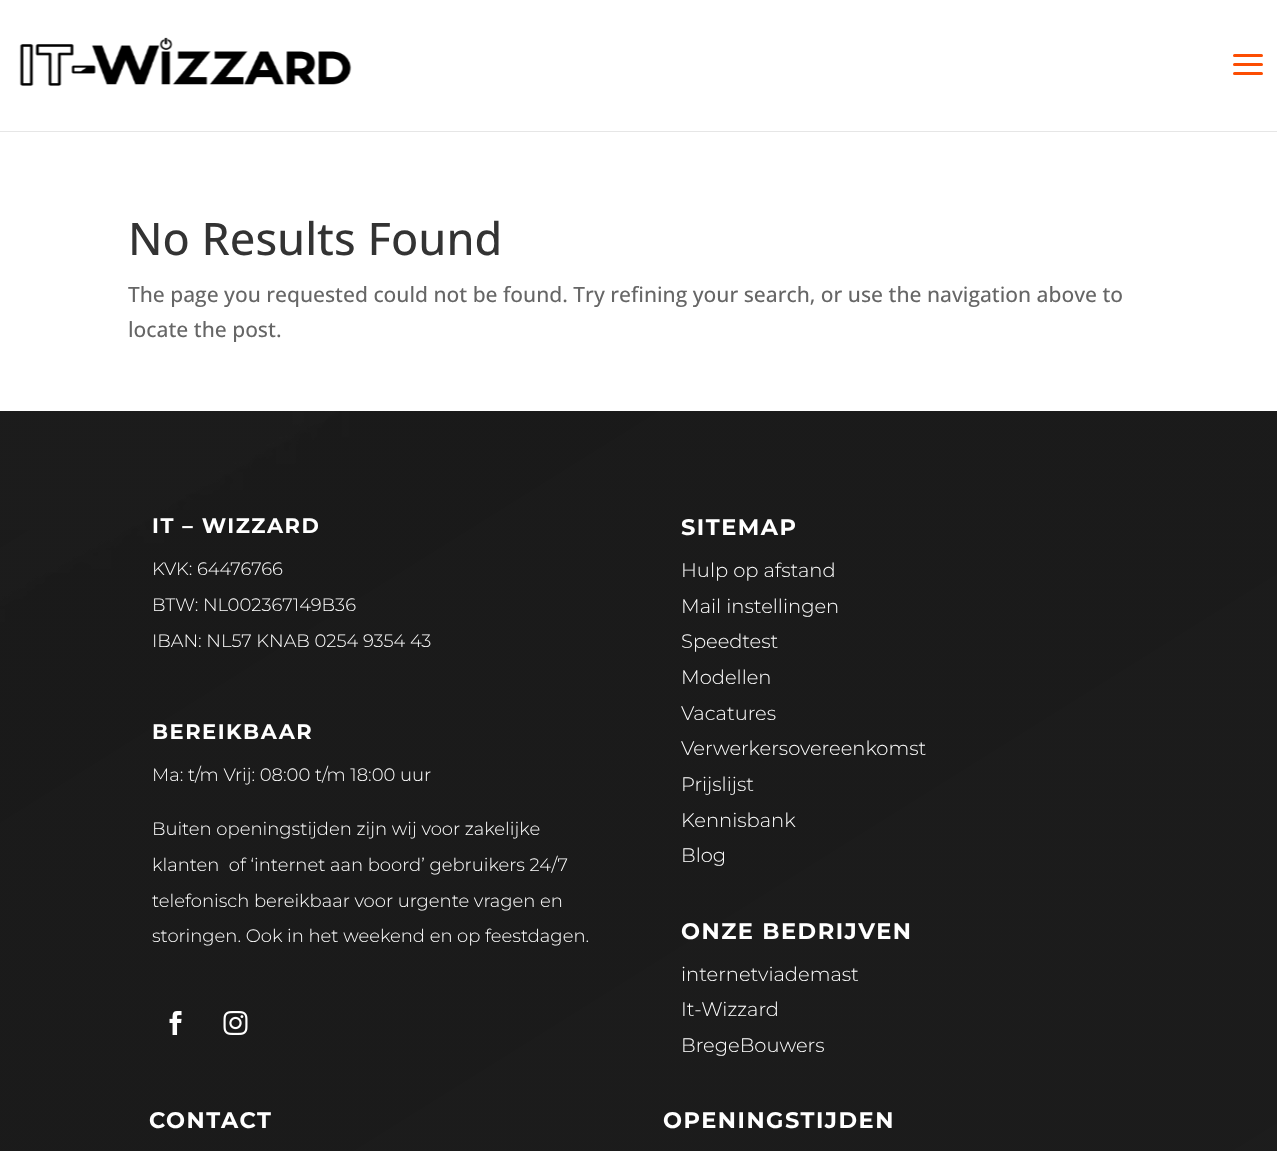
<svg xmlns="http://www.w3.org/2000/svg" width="1277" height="1151">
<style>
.a{font:500 45px Open Sans;fill:#333}
.b{font:500 21px Open Sans;fill:#666}
.c{font:100 21px Montserrat;letter-spacing:1.5px;fill:#fff}
.d{font:100 18px 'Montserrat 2';fill:#fff}
.e{font:100 22.5px Montserrat;letter-spacing:1.5px;fill:#fff}
.f{font:100 19.5px 'Montserrat 2';fill:#fff}
</style>
<rect width="100%" height="100%" fill="#fff"/>
<path fill="#e6e6e6" d="M0 131h1277v1H0z"/>
<image href="1.png" x="19" y="37" width="333" height="49"/>
<rect fill="#fc4d02" x="1233" y="63" width="30" height="3" rx="1.5"/>
<rect fill="#fc4d02" x="1233" y="54" width="30" height="3" rx="1.5"/>
<rect fill="#fc4d02" x="1233" y="72" width="30" height="3" rx="1.5"/>
<image href="2.png" x="0" y="411" width="1277" height="740"/>
<image href="3.png" x="169" y="1011" width="13" height="24"/>
<image href="4.png" x="223" y="1011" width="25" height="24"/>
<text class="a" x="128" y="255">No Results Found</text>
<text class="b" x="128" y="302">The page you requested could not be found. Try refining your search, or use the navigation above to</text>
<text class="b" x="128" y="337">locate the post.</text>
<text class="c" x="152" y="533">IT – WIZZARD</text>
<text class="d" x="152" y="575">KVK: 64476766</text>
<text class="d" x="152" y="611">BTW: NL002367149B36</text>
<text class="d" x="152" y="647">IBAN: NL57 KNAB 0254 9354 43</text>
<text class="c" x="152" y="739">BEREIKBAAR</text>
<text class="d" x="152" y="781">Ma: t/m Vrij: 08:00 t/m 18:00 uur</text>
<text class="d" x="152" y="835">Buiten openingstijden zijn wij voor zakelijke</text>
<text class="d" xml:space="preserve" x="152" y="871">klanten  of ‘internet aan boord’ gebruikers 24/7</text>
<text class="d" x="152" y="907">telefonisch bereikbaar voor urgente vragen en</text>
<text class="d" x="152" y="942">storingen. Ook in het weekend en op feestdagen.</text>
<text class="e" x="681" y="535">SITEMAP</text>
<text class="f" x="681" y="577">Hulp op afstand</text>
<text class="f" x="681" y="613">Mail instellingen</text>
<text class="f" x="681" y="648">Speedtest</text>
<text class="f" x="681" y="684">Modellen</text>
<text class="f" x="681" y="720">Vacatures</text>
<text class="f" x="681" y="755">Verwerkersovereenkomst</text>
<text class="f" x="681" y="791">Prijslijst</text>
<text class="f" x="681" y="827">Kennisbank</text>
<text class="f" x="681" y="862">Blog</text>
<text class="e" x="681" y="939">ONZE BEDRIJVEN</text>
<text class="f" x="681" y="981">internetviademast</text>
<text class="f" x="681" y="1016">It-Wizzard</text>
<text class="f" x="681" y="1052">BregeBouwers</text>
<text class="e" x="149" y="1128">CONTACT</text>
<text class="e" x="663" y="1128">OPENINGSTIJDEN</text>
</svg>
